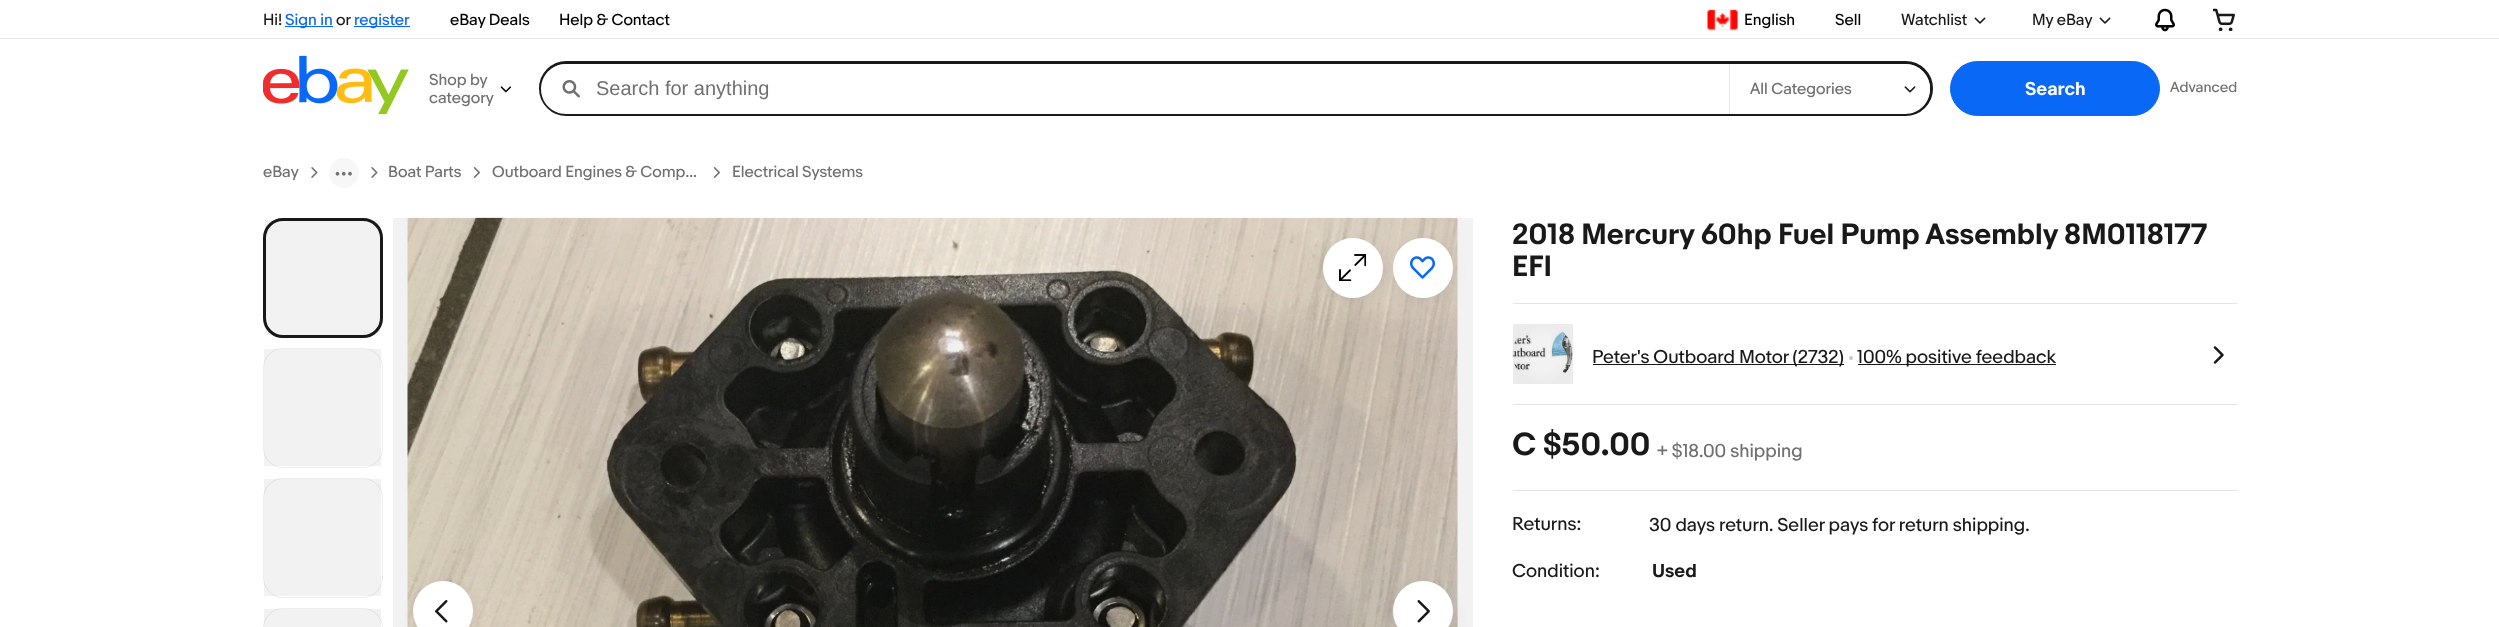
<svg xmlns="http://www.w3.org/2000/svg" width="2499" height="627">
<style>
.a{font:15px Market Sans;fill:#191919}
.b{font:15px Market Sans;fill:#0968f6}
.c{font:15px Market Sans;fill:#000}
.d{font:15px Market Sans;fill:#707070}
.e{font:20px Liberation Sans;fill:#707070}
.f{font:bold 17.5px Market Sans;fill:#fff}
.g{font:13.75px Market Sans;fill:#707070}
.h{font:bold 27.5px Market Sans;fill:#191919}
.i{font:17.5px Market Sans;fill:#191919}
.j{font:bold 30px Market Sans;fill:#191919}
.k{font:17.5px Market Sans;fill:#707070}
.l{font:bold 17.5px Market Sans;fill:#191919}
</style>
<defs>
<radialGradient id="g1" gradientUnits="userSpaceOnUse" cx="1543" cy="354" r="30"><stop offset="0.52" stop-color="#000" stop-opacity="0"/><stop offset="1" stop-color="#000" stop-opacity="0.03"/></radialGradient>
</defs>
<rect width="100%" height="100%" fill="#fff"/>
<path fill="#0968f6" d="M285 26h48v1H285z"/>
<path fill="#0968f6" d="M354 26h56v1H354z"/>
<image href="1.png" x="1707" y="9" width="31" height="22"/>
<image href="2.png" x="1974" y="17" width="12" height="7"/>
<image href="2.png" x="2099" y="17" width="12" height="7"/>
<image href="3.png" x="2155" y="8" width="20" height="24"/>
<image href="4.png" x="2213" y="8" width="22" height="23"/>
<image href="5.png" x="263" y="55" width="146" height="60"/>
<image href="6.png" x="500" y="86" width="11" height="7"/>
<rect fill="none" stroke="#191919" stroke-width="3" x="540.5" y="62.5" width="1391" height="52" rx="26"/>
<path fill="#e5e5e5" d="M1729 64h1v50H1729z"/>
<path fill="#fff" d="M566 64h1163v50h-1163c-14 0-25-11-25-25c0-14 11-25 25-25z"/>
<image href="7.png" x="562" y="80" width="18" height="18"/>
<path fill="#fff" d="M1730 64h175c14 0 25 11 25 25c0 14-11 25-25 25h-175z"/>
<image href="8.png" x="1904" y="86" width="12" height="7"/>
<rect fill="#0968f6" stroke="#0968f6" x="1950.5" y="61.5" width="209" height="54" rx="27"/>
<path fill="#e5e5e5" d="M0 38h2499v1H0z"/>
<image href="9.png" x="311" y="167" width="7" height="11"/>
<circle fill="#f7f7f7" cx="344" cy="173" r="15"/>
<image href="10.png" x="335" y="171" width="17" height="5"/>
<image href="9.png" x="371" y="167" width="7" height="11"/>
<image href="11.png" x="473" y="167" width="7" height="11"/>
<image href="11.png" x="713" y="167" width="7" height="11"/>
<rect fill="none" stroke="#191919" stroke-width="3" x="264.5" y="219.5" width="117" height="117" rx="18.5"/>
<path fill="#0000000d" d="M265 220h115v115H265z"/>
<rect fill="none" stroke="#ededed" x="263.5" y="348.5" width="119" height="119" rx="19.5"/>
<path fill="#0000000d" d="M264 349h117v117H264z"/>
<rect fill="none" stroke="#ededed" x="263.5" y="478.5" width="119" height="119" rx="19.5"/>
<path fill="#0000000d" d="M264 479h117v117H264z"/>
<rect fill="none" stroke="#ededed" x="263.5" y="608.5" width="119" height="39" rx="19.5"/>
<path fill="#0000000d" d="M264 609h117v18H264z"/>
<image href="12.png" x="407" y="217" width="1051" height="410"/>
<path fill="#0000000d" d="M393 218h1080v409H393z"/>
<rect fill="#00000012" filter="blur(7.5px)" x="1323" y="243" width="60" height="60" rx="30"/>
<circle fill="#fff" cx="1353" cy="268" r="30"/>
<image href="13.png" x="1339" y="254" width="27" height="27"/>
<rect fill="#00000012" filter="blur(7.5px)" x="1393" y="243" width="60" height="60" rx="30"/>
<circle fill="#fff" cx="1423" cy="268" r="30"/>
<image href="14.png" x="1410" y="256" width="25" height="23"/>
<rect fill="#00000012" filter="blur(7.5px)" x="413" y="586" width="60" height="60" rx="30"/>
<circle fill="#fff" cx="443" cy="611" r="30"/>
<image href="15.png" x="435" y="600" width="13" height="23"/>
<rect fill="#00000012" filter="blur(7.5px)" x="1393" y="586" width="60" height="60" rx="30"/>
<circle fill="#fff" cx="1423" cy="611" r="30"/>
<image href="16.png" x="1417" y="600" width="13" height="23"/>
<path fill="#e5e5e5" d="M1513 303h725v1H1513z"/>
<path fill="#e5e5e5" d="M1513 404h725v1H1513z"/>
<image href="17.png" x="1512" y="331" width="61" height="43"/>
<path fill="#0000000d" d="M1513 324h60v60H1513z"/>
<path fill="url(#g1)" d="M1513 324h60v60H1513z"/>
<path fill="#191919" d="M1593 364h251v1H1593z"/>
<circle fill="#c7c7c7" cx="1851" cy="358" r="2"/>
<path fill="#191919" d="M1858 364h198v1H1858z"/>
<image href="18.png" x="2213" y="346" width="11" height="18"/>
<path fill="#e5e5e5" d="M1513 490h725v1H1513z"/>
<text class="a" x="263" y="25">Hi!</text>
<text class="b" x="285" y="25">Sign in</text>
<text class="a" x="336" y="25">or</text>
<text class="b" x="354" y="25">register</text>
<text class="c" x="450" y="25">eBay Deals</text>
<text class="c" x="559" y="25">Help &amp; Contact</text>
<text class="c" x="1744" y="25">English</text>
<text class="c" x="1835" y="25">Sell</text>
<text class="a" x="1901" y="25">Watchlist</text>
<text class="a" x="2032" y="25">My eBay</text>
<text class="d" x="429" y="85">Shop by</text>
<text class="d" x="429" y="103">category</text>
<text class="e" x="596" y="95">Search for anything</text>
<text class="d" x="1750" y="94">All Categories</text>
<text class="f" x="2025" y="95">Search</text>
<text class="g" x="2170" y="92">Advanced</text>
<text class="d" x="263" y="177">eBay</text>
<text class="d" x="388" y="177">Boat Parts</text>
<text class="d" x="492" y="177">Outboard Engines &amp; Comp…</text>
<text class="d" x="732" y="177">Electrical Systems</text>
<text class="h" x="1512" y="244">2018 Mercury 60hp Fuel Pump Assembly 8M0118177</text>
<text class="h" x="1512" y="276">EFI</text>
<text class="i" x="1592" y="363">Peter's Outboard Motor (2732)</text>
<text class="i" x="1857" y="363">100% positive feedback</text>
<text class="j" x="1512" y="455">C $50.00</text>
<text class="k" x="1657" y="457">+ $18.00 shipping</text>
<text class="i" x="1512" y="530">Returns:</text>
<text class="i" x="1649" y="531">30 days return. Seller pays for return shipping.</text>
<text class="i" x="1512" y="577">Condition:</text>
<text class="l" x="1652" y="577">Used</text>
</svg>
